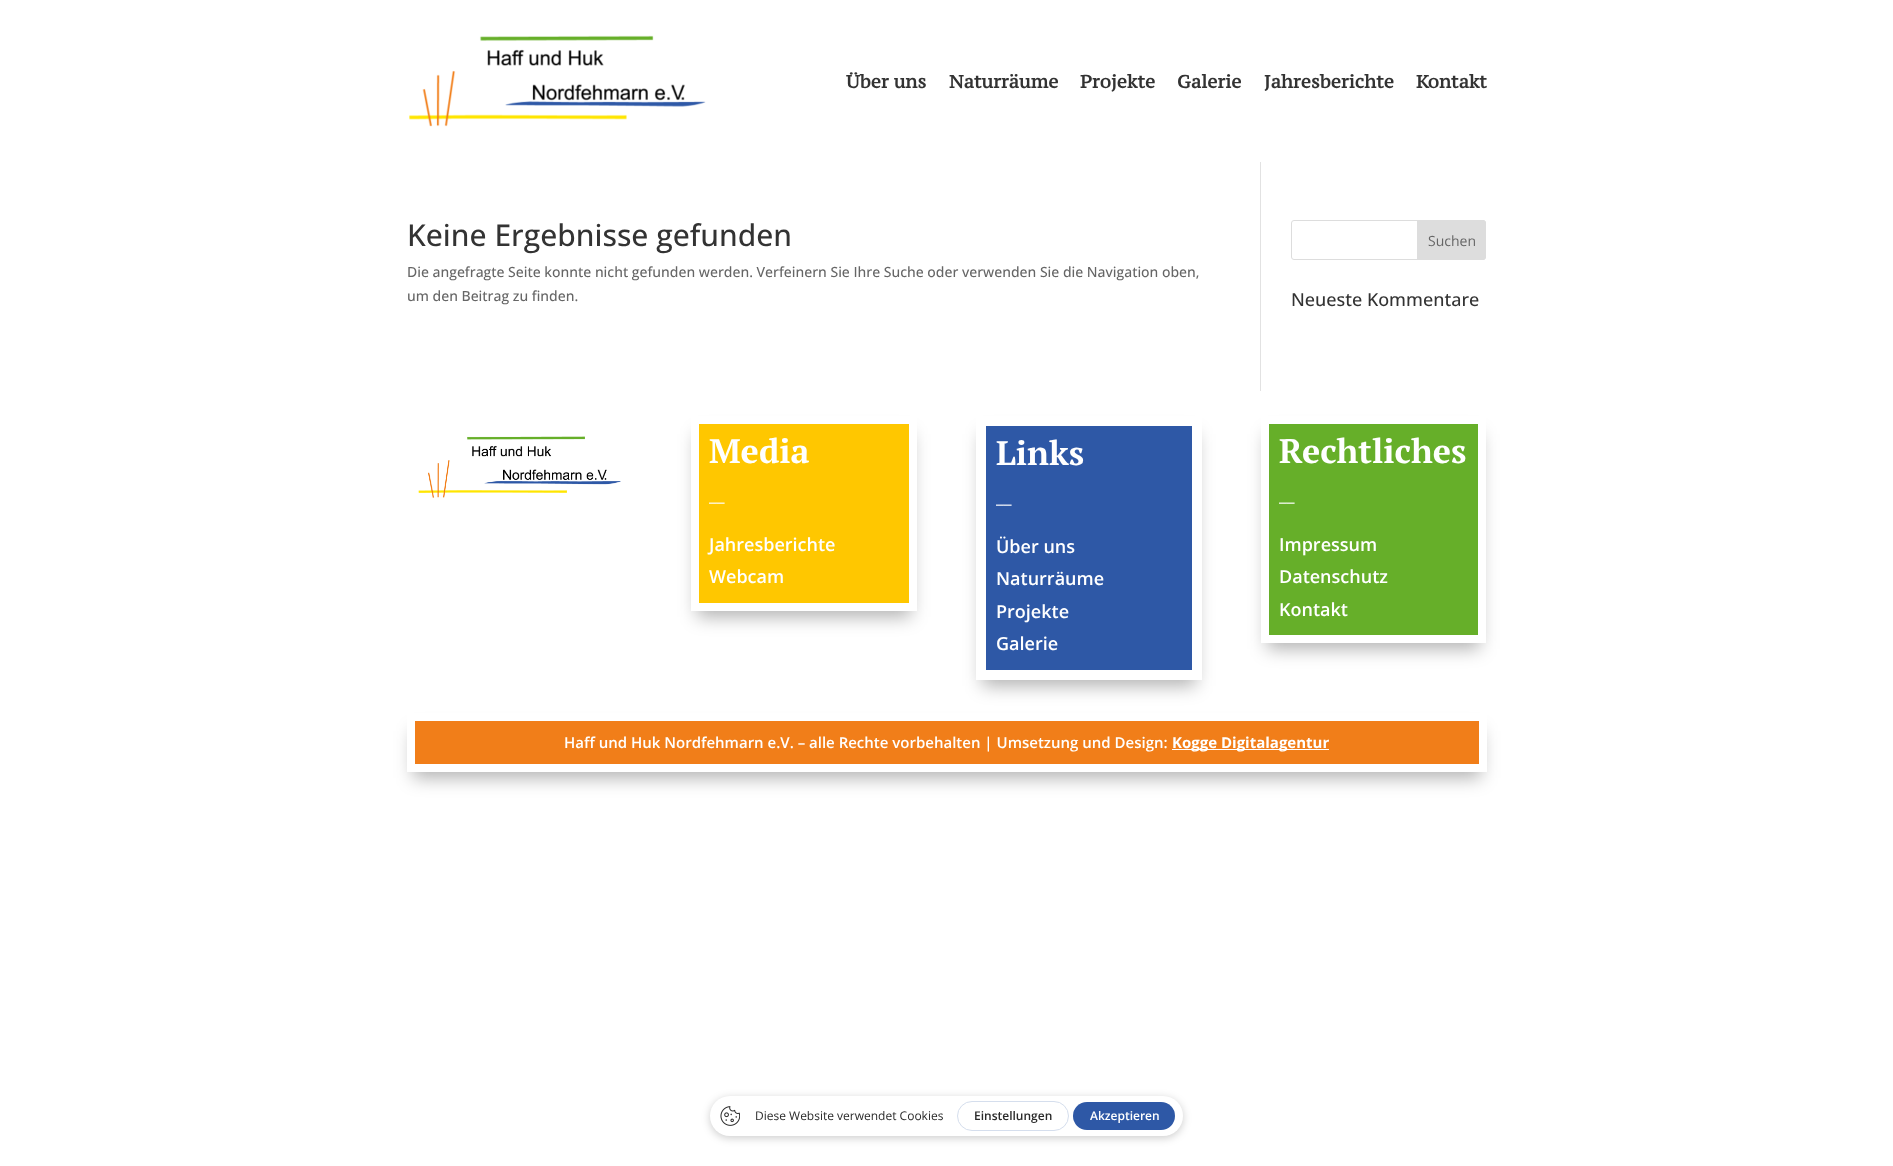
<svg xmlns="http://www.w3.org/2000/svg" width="1893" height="1166">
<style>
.a{font:bold 18px PT Serif Caption;fill:#333}
.b{font:500 30px Open Sans;fill:#333}
.c{font:500 14px Open Sans;fill:#666}
.d{font:14px Open Sans;fill:#666}
.e{font:500 18px Open Sans;fill:#333}
.f{font:bold 34px PT Serif;fill:#fff}
.g{font:500 18px Open Sans;fill:#fff}
.h{font:600 18px Open Sans;fill:#fff}
.i{font:600 15px Open Sans;fill:#fff}
.j{font:bold 15px Open Sans;fill:#fff}
.k{font:12px Open Sans;fill:#2a2a2a}
.l{font:600 12px Open Sans;fill:#2a2a2a}
.m{font:600 12px Open Sans;fill:#fff}
</style>
<defs>
<clipPath id="clip1"><path d="M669 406h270v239h-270zm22 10h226v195h-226z" clip-rule="evenodd"/></clipPath>
<clipPath id="clip2"><path d="M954 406h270v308h-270zm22 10h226v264h-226z" clip-rule="evenodd"/></clipPath>
<clipPath id="clip3"><path d="M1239 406h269v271h-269zm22 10h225v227h-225z" clip-rule="evenodd"/></clipPath>
</defs>
<rect width="100%" height="100%" fill="#fff"/>
<image href="1.png" x="409" y="35" width="297" height="92"/>
<path fill="#e2e2e2" d="M1260 162h1v229H1260z"/>
<rect fill="none" stroke="#ddd" x="1291.5" y="220.5" width="194" height="39" rx="2.5"/>
<path fill="#ddd" stroke="#ddd" d="M1417.5 220.5h65.5c1.5 0 2.5 1 2.5 2.5v34c0 1.5-1 2.5-2.5 2.5h-65.5z"/>
<image href="2.png" x="418" y="436" width="203" height="62"/>
<g clip-path="url(#clip1)">
<path fill="#0000004d" filter="blur(9px)" d="M697 434h214v183H697z"/>
</g>
<path fill="#ffc700" d="M699 424h210v179H699z"/>
<g clip-path="url(#clip2)">
<path fill="#0000004d" filter="blur(9px)" d="M982 434h214v252H982z"/>
</g>
<path fill="#2e58a6" d="M986 426h206v244H986z"/>
<g clip-path="url(#clip3)">
<path fill="#0000004d" filter="blur(9px)" d="M1267 434h213v215H1267z"/>
</g>
<path fill="#66af29" d="M1269 424h209v211H1269z"/>
<path fill="#0000004d" filter="blur(9px)" d="M413 731h1068v47H413z"/>
<path fill="#f17e19" stroke="#fff" stroke-width="8" d="M411 717h1072v51H411z"/>
<path fill="#fff" d="M1172 749h157v1H1172z"/>
<rect fill="#00000033" filter="blur(4px)" x="710" y="1098" width="473" height="40" rx="20"/>
<rect fill="#fff" x="710" y="1096" width="473" height="40" rx="20"/>
<image href="3.png" x="720" y="1106" width="20" height="20"/>
<rect fill="none" stroke="#d5deed" x="957.5" y="1101.5" width="111" height="29" rx="14.5"/>
<rect fill="#2e58a6" x="1073" y="1102" width="102" height="28" rx="14"/>
<text class="a" x="846" y="88">Über uns</text>
<text class="a" x="949" y="88">Naturräume</text>
<text class="a" x="1080" y="88">Projekte</text>
<text class="a" x="1177" y="88">Galerie</text>
<text class="a" x="1264" y="88">Jahresberichte</text>
<text class="a" x="1416" y="88">Kontakt</text>
<text class="b" x="407" y="246">Keine Ergebnisse gefunden</text>
<text class="c" x="407" y="277">Die angefragte Seite konnte nicht gefunden werden. Verfeinern Sie Ihre Suche oder verwenden Sie die Navigation oben,</text>
<text class="c" x="407" y="301">um den Beitrag zu finden.</text>
<text class="d" x="1428" y="246">Suchen</text>
<text class="e" x="1291" y="306">Neueste Kommentare</text>
<text class="f" x="709" y="463">Media</text>
<text class="g" x="709" y="501">__</text>
<text class="h" x="709" y="551">Jahresberichte</text>
<text class="h" x="709" y="583">Webcam</text>
<text class="f" x="996" y="465">Links</text>
<text class="g" x="996" y="503">__</text>
<text class="h" x="996" y="553">Über uns</text>
<text class="h" x="996" y="585">Naturräume</text>
<text class="h" x="996" y="618">Projekte</text>
<text class="h" x="996" y="650">Galerie</text>
<text class="f" x="1279" y="463">Rechtliches</text>
<text class="g" x="1279" y="501">__</text>
<text class="h" x="1279" y="551">Impressum</text>
<text class="h" x="1279" y="583">Datenschutz</text>
<text class="h" x="1279" y="616">Kontakt</text>
<text class="i" x="564" y="748">Haff und Huk Nordfehmarn e.V. – alle Rechte vorbehalten | Umsetzung und Design:</text>
<text class="j" x="1172" y="748">Kogge Digitalagentur</text>
<text class="k" x="755" y="1120">Diese Website verwendet Cookies</text>
<text class="l" x="974" y="1120">Einstellungen</text>
<text class="m" x="1090" y="1120">Akzeptieren</text>
</svg>
